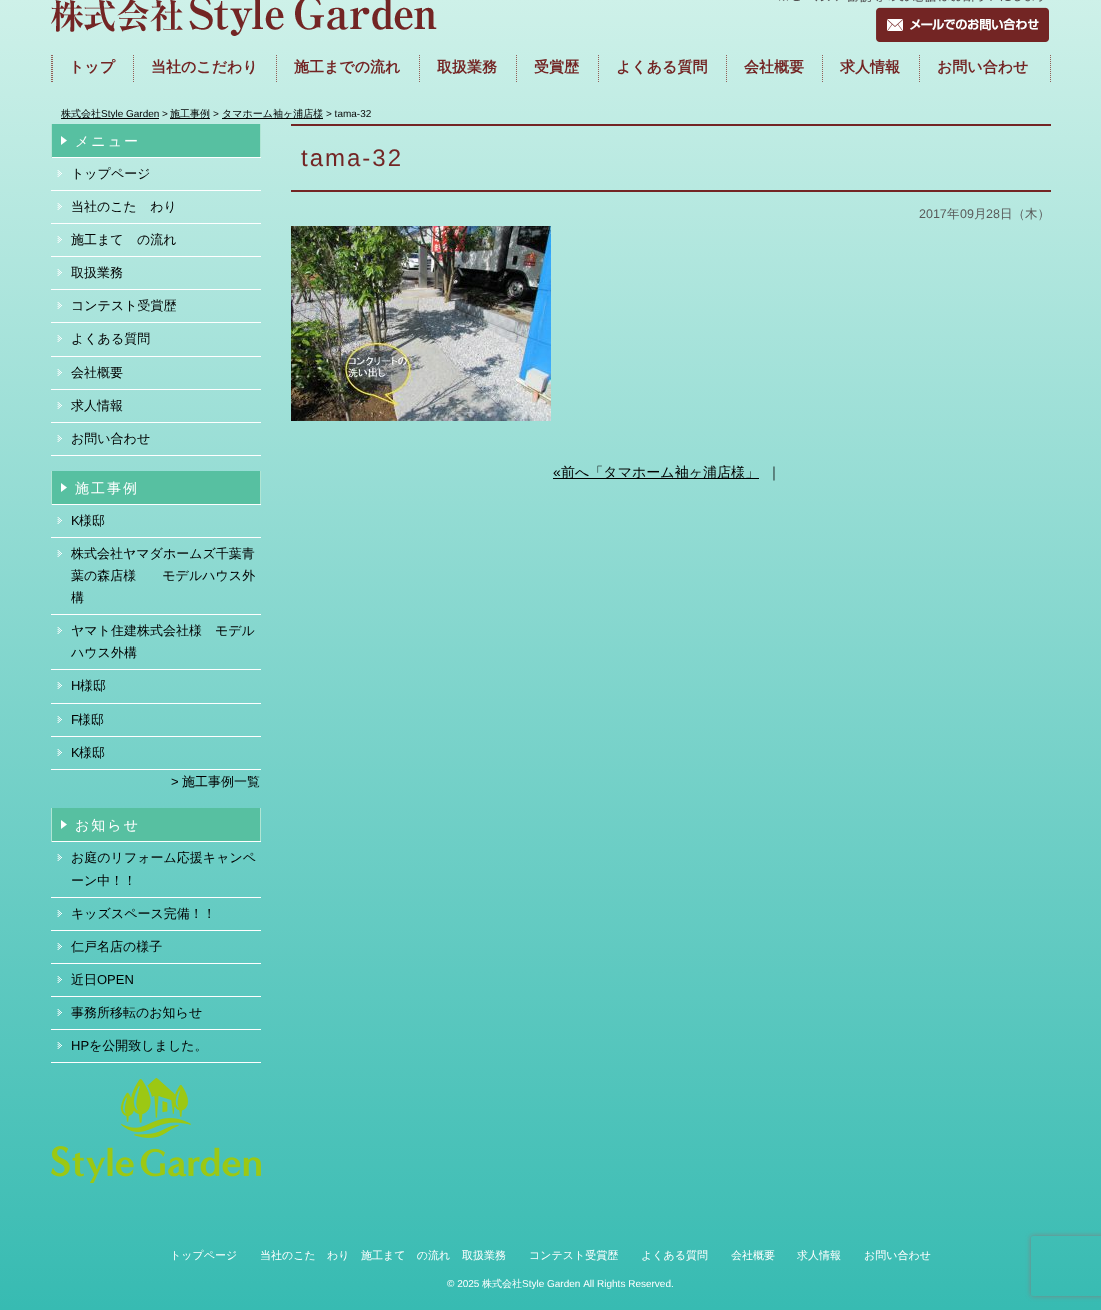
<svg xmlns="http://www.w3.org/2000/svg" width="1101" height="1310">
<style>*{font-kerning:none!important;font-variant-ligatures:none!important}</style>
<style>
.a{font:bold 15px WenQuanYi Zen Hei;fill:#732524}
.b{font:500 10px WenQuanYi Zen Hei;fill:#000}
.c{font:10px Liberation Sans;fill:#000}
.d{font:10px Liberation Sans;fill:#080808}
.e{font:500 14px WenQuanYi Zen Hei;letter-spacing:2px;fill:#fff}
.f{font:500 13px WenQuanYi Zen Hei;fill:#000}
.g{font:13px Liberation Sans;fill:#000}
.h{font:24px Liberation Sans;letter-spacing:2px;fill:#732524}
.i{font:12.5px Liberation Sans;fill:#5a5a5a}
.j{font:500 12.5px WenQuanYi Zen Hei;fill:#5a5a5a}
.k{font:14px Liberation Sans;fill:#000}
.l{font:500 14px WenQuanYi Zen Hei;fill:#000}
.m{font:500 14px WenQuanYi Zen Hei;fill:#080808}
.n{font:500 11px WenQuanYi Zen Hei;fill:#fff}
.o{font:10px Liberation Sans;fill:#fff}
.p{font:500 10px WenQuanYi Zen Hei;fill:#fff}
</style>
<defs>
<linearGradient id="g1" gradientUnits="userSpaceOnUse" x1="550" y1="-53" x2="551" y2="1310"><stop offset="0" stop-color="#d4f3eb"/><stop offset="1" stop-color="#37bbb2"/></linearGradient>
<clipPath id="clip1"><path d="M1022 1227h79v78h-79zm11 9h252c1 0 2 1 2 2v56c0 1-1 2-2 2h-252c-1 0-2-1-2-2v-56c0-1 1-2 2-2z" clip-rule="evenodd"/></clipPath>
</defs>
<rect width="100%" height="100%" fill="#fff"/>
<path fill="url(#g1)" d="M0 0h1101v1310H0z"/>
<image href="1.png" x="51" y="0" width="386" height="36"/>
<image href="2.png" x="779" y="0" width="270" height="42"/>
<image href="3.png" x="1050" y="55" width="1" height="27"/>
<image href="4.png" x="51" y="55" width="2" height="27"/>
<image href="3.png" x="133" y="55" width="1" height="27"/>
<image href="3.png" x="276" y="55" width="1" height="27"/>
<image href="3.png" x="419" y="55" width="1" height="27"/>
<image href="3.png" x="516" y="55" width="1" height="27"/>
<image href="3.png" x="598" y="55" width="1" height="27"/>
<image href="3.png" x="726" y="55" width="1" height="27"/>
<image href="3.png" x="822" y="55" width="1" height="27"/>
<image href="3.png" x="919" y="55" width="1" height="27"/>
<path fill="#000" d="M61 118h98v1H61z"/>
<path fill="#000" d="M170 118h40v1H170z"/>
<path fill="#000" d="M222 118h101v1H222z"/>
<image href="5.png" x="52" y="124" width="208" height="33"/>
<path fill="#b1e5d4" d="M260 124h1v34H260z"/>
<path fill="#fff" d="M51 157h210v1H51z"/>
<path fill="#b1e5d4" d="M51 124h1v34H51z"/>
<image href="6.png" x="57" y="170" width="5" height="7"/>
<path fill="#fff" d="M51 190h210v1H51z"/>
<image href="7.png" x="57" y="203" width="5" height="7"/>
<path fill="#fff" d="M51 223h210v1H51z"/>
<image href="8.png" x="57" y="236" width="5" height="7"/>
<path fill="#fff" d="M51 256h210v1H51z"/>
<image href="9.png" x="57" y="269" width="5" height="7"/>
<path fill="#fff" d="M51 289h210v1H51z"/>
<image href="10.png" x="57" y="302" width="5" height="7"/>
<path fill="#fff" d="M51 322h210v1H51z"/>
<image href="11.png" x="57" y="335" width="5" height="7"/>
<path fill="#fff" d="M51 356h210v1H51z"/>
<image href="12.png" x="57" y="369" width="5" height="7"/>
<path fill="#fff" d="M51 389h210v1H51z"/>
<image href="13.png" x="57" y="402" width="5" height="7"/>
<path fill="#fff" d="M51 422h210v1H51z"/>
<image href="14.png" x="57" y="435" width="5" height="7"/>
<path fill="#fff" d="M51 455h210v1H51z"/>
<image href="5.png" x="52" y="471" width="208" height="33"/>
<path fill="#b1e5d4" d="M260 471h1v34H260z"/>
<path fill="#fff" d="M51 504h210v1H51z"/>
<path fill="#b1e5d4" d="M51 471h1v34H51z"/>
<image href="15.png" x="57" y="517" width="5" height="7"/>
<path fill="#fff" d="M51 537h210v1H51z"/>
<image href="16.png" x="57" y="550" width="5" height="7"/>
<path fill="#fff" d="M51 614h210v1H51z"/>
<image href="17.png" x="57" y="627" width="5" height="7"/>
<path fill="#fff" d="M51 669h210v1H51z"/>
<image href="18.png" x="57" y="682" width="5" height="7"/>
<path fill="#fff" d="M51 703h210v1H51z"/>
<image href="19.png" x="57" y="716" width="5" height="7"/>
<path fill="#fff" d="M51 736h210v1H51z"/>
<image href="20.png" x="57" y="749" width="5" height="7"/>
<path fill="#fff" d="M51 769h210v1H51z"/>
<image href="5.png" x="52" y="808" width="208" height="33"/>
<path fill="#b1e5d4" d="M260 808h1v34H260z"/>
<path fill="#fff" d="M51 841h210v1H51z"/>
<path fill="#b1e5d4" d="M51 808h1v34H51z"/>
<image href="21.png" x="57" y="854" width="5" height="7"/>
<path fill="#fff" d="M51 897h210v1H51z"/>
<image href="22.png" x="57" y="910" width="5" height="7"/>
<path fill="#fff" d="M51 930h210v1H51z"/>
<image href="23.png" x="57" y="943" width="5" height="7"/>
<path fill="#fff" d="M51 963h210v1H51z"/>
<image href="24.png" x="57" y="976" width="5" height="7"/>
<path fill="#fff" d="M51 996h210v1H51z"/>
<image href="25.png" x="57" y="1009" width="5" height="7"/>
<path fill="#fff" d="M51 1029h210v1H51z"/>
<image href="26.png" x="57" y="1042" width="5" height="7"/>
<path fill="#fff" d="M51 1062h210v1H51z"/>
<image href="27.png" x="51" y="1078" width="210" height="105"/>
<path fill="#732524" d="M291 124h760v2H291z"/>
<path fill="#732524" d="M291 190h760v2H291z"/>
<image href="28.png" x="291" y="226" width="260" height="195"/>
<path fill="#000" d="M553 478h206v1H553z"/>
<g clip-path="url(#clip1)">
<rect fill="#808080" filter="blur(2.5px)" x="1031" y="1236" width="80" height="60" rx="2"/>
</g>
<text class="a" x="69" y="72">トップ</text>
<text class="a" x="151" y="72">当社のこだわり</text>
<text class="a" x="294" y="72">施工までの流れ</text>
<text class="a" x="437" y="72">取扱業務</text>
<text class="a" x="534" y="72">受賞歴</text>
<text class="a" x="616" y="72">よくある質問</text>
<text class="a" x="744" y="72">会社概要</text>
<text class="a" x="840" y="72">求人情報</text>
<text class="a" x="937" y="72">お問い合わせ</text>
<text class="b" x="61" y="117">株式会社</text>
<text class="c" x="101" y="117">Style Garden</text>
<text class="d" x="162" y="117">&gt;</text>
<text class="b" x="170" y="117">施工事例</text>
<text class="d" x="213" y="117">&gt;</text>
<text class="b" x="222" y="117">タマホーム袖ヶ浦店様</text>
<text class="d" x="326" y="117">&gt; tama-32</text>
<text class="e" x="75" y="146">メニュー</text>
<text class="f" x="71" y="178">トップページ</text>
<text class="f" x="71" y="211">当社のこだわり</text>
<text class="f" x="71" y="244">施工までの流れ</text>
<text class="f" x="71" y="277">取扱業務</text>
<text class="f" x="71" y="310">コンテスト受賞歴</text>
<text class="f" x="71" y="343">よくある質問</text>
<text class="f" x="71" y="377">会社概要</text>
<text class="f" x="71" y="410">求人情報</text>
<text class="f" x="71" y="443">お問い合わせ</text>
<text class="e" x="75" y="493">施工事例</text>
<text class="g" x="71" y="525">K</text>
<text class="f" x="79" y="525">様邸</text>
<text class="f" x="71" y="558">株式会社ヤマダホームズ千葉青</text>
<text class="f" x="71" y="580">葉の森店様　　モデルハウス外</text>
<text class="f" x="71" y="602">構</text>
<text class="f" x="71" y="635">ヤマト住建株式会社様　モデル</text>
<text class="f" x="71" y="657">ハウス外構</text>
<text class="g" x="71" y="690">H</text>
<text class="f" x="80" y="690">様邸</text>
<text class="g" x="71" y="724">F</text>
<text class="f" x="78" y="724">様邸</text>
<text class="g" x="71" y="757">K</text>
<text class="f" x="79" y="757">様邸</text>
<text class="g" x="171" y="786">&gt;</text>
<text class="f" x="182" y="786">施工事例一覧</text>
<text class="e" x="75" y="830">お知らせ</text>
<text class="f" x="71" y="862">お庭のリフォーム応援キャンペ</text>
<text class="f" x="71" y="885">ーン中！！</text>
<text class="f" x="71" y="918">キッズスペース完備！！</text>
<text class="f" x="71" y="951">仁戸名店の様子</text>
<text class="f" x="71" y="984">近日</text>
<text class="g" x="97" y="984">OPEN</text>
<text class="f" x="71" y="1017">事務所移転のお知らせ</text>
<text class="g" x="71" y="1050">HP</text>
<text class="f" x="89" y="1050">を公開致しました。</text>
<text class="h" x="301" y="166">tama-32</text>
<text class="i" x="919" y="218">2017</text>
<text class="j" x="947" y="218">年</text>
<text class="i" x="960" y="218">09</text>
<text class="j" x="974" y="218">月</text>
<text class="i" x="986" y="218">28</text>
<text class="j" x="1000" y="218">日（木）</text>
<text class="k" x="553" y="477">«</text>
<text class="l" x="561" y="477">前へ「タマホーム袖ヶ浦店様」</text>
<text class="m" x="767" y="477">｜</text>
<text class="n" x="170" y="1259">トップページ</text>
<text class="n" x="260" y="1259">当社のこだわり</text>
<text class="n" x="361" y="1259">施工までの流れ</text>
<text class="n" x="462" y="1259">取扱業務</text>
<text class="n" x="529" y="1259">コンテスト受賞歴</text>
<text class="n" x="641" y="1259">よくある質問</text>
<text class="n" x="731" y="1259">会社概要</text>
<text class="n" x="797" y="1259">求人情報</text>
<text class="n" x="864" y="1259">お問い合わせ</text>
<text class="o" x="447" y="1287">© 2025</text>
<text class="p" x="482" y="1287">株式会社</text>
<text class="o" x="522" y="1287">Style Garden All Rights Reserved.</text>
</svg>
